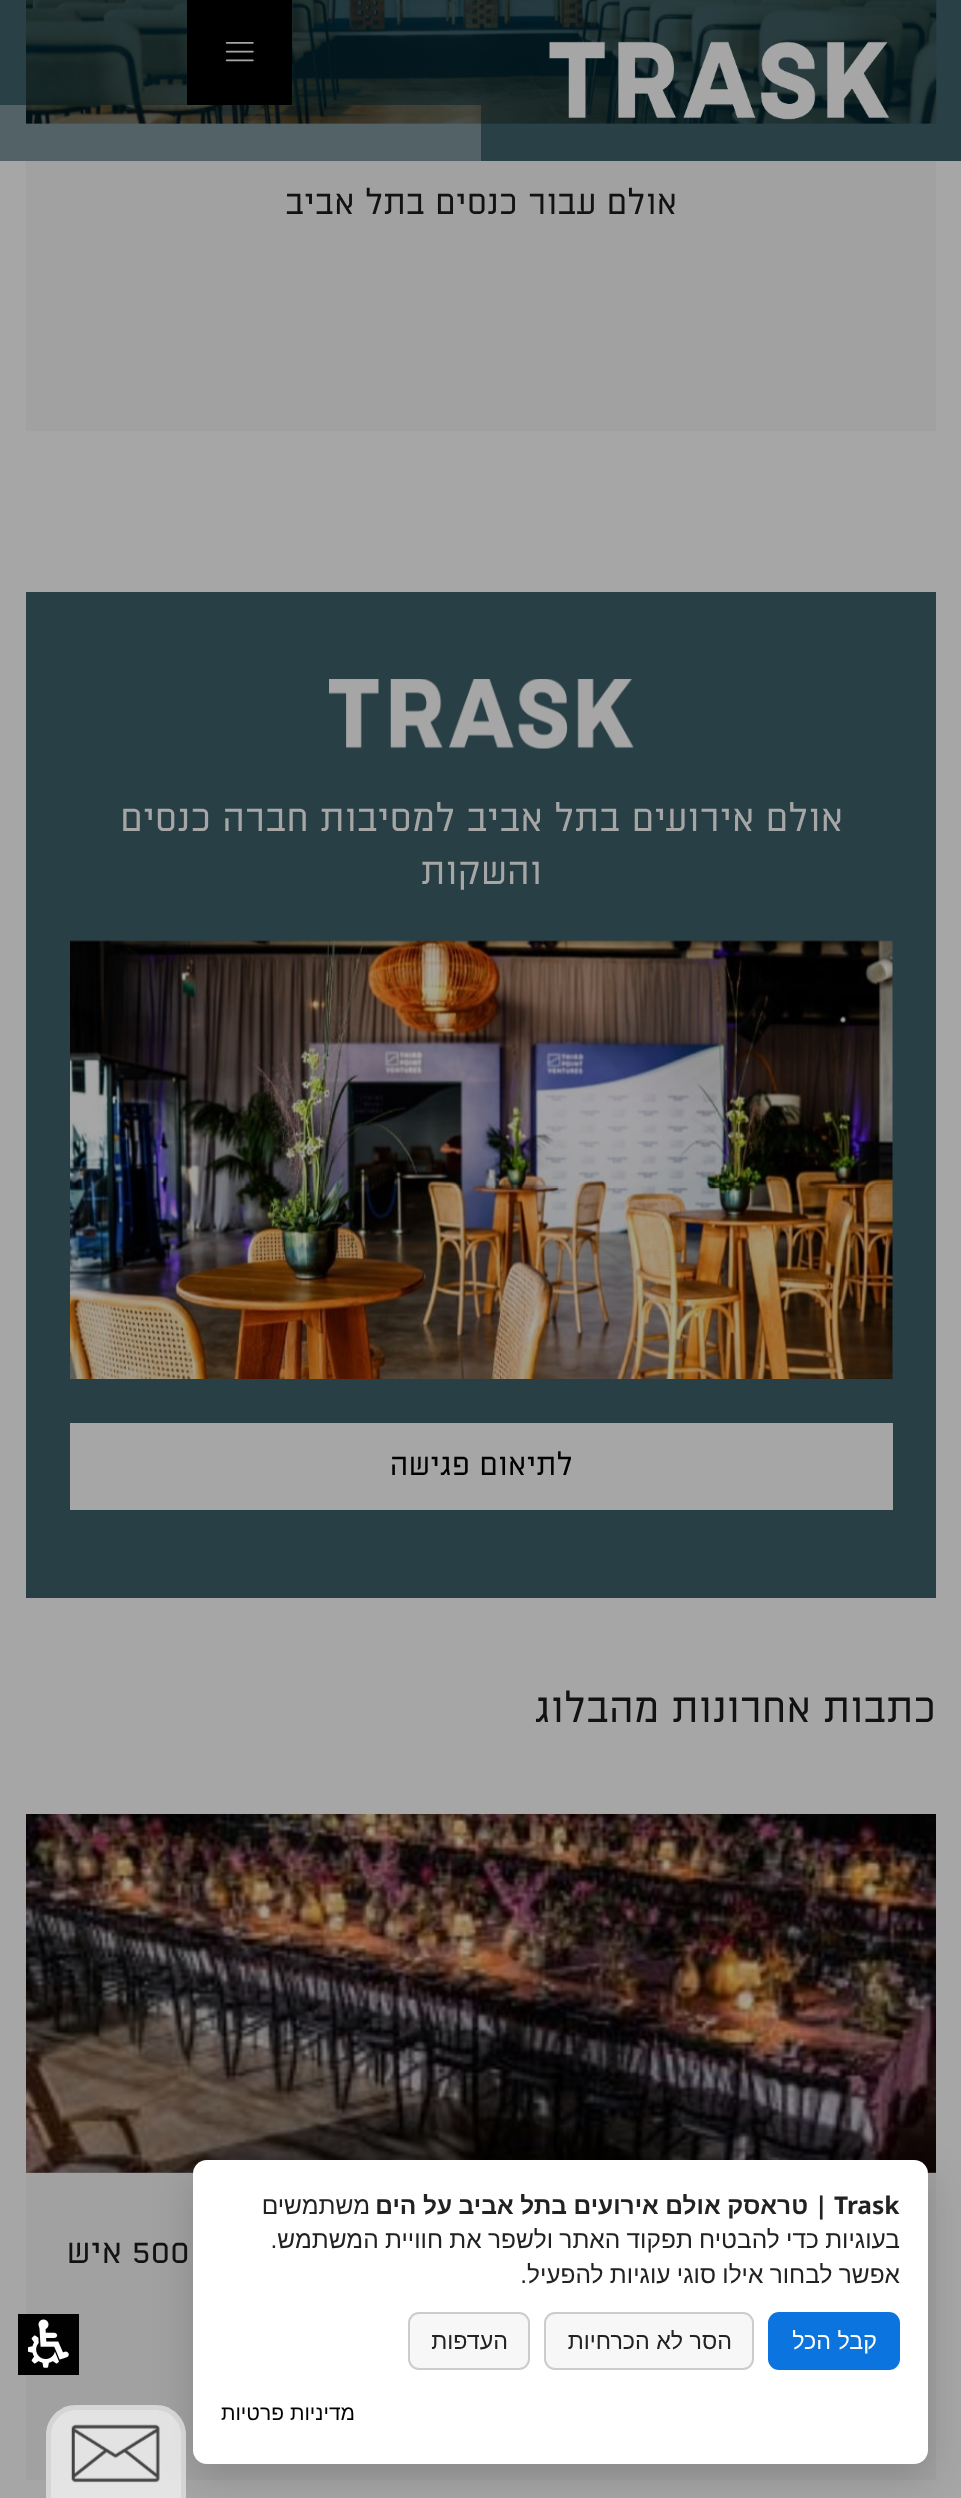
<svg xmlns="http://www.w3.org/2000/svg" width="961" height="2498">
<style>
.a{font:35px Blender;direction:rtl;fill:#121212}
.b{font:38.5px Blender;direction:rtl;fill:#a6a6a6}
.c{font:31.5px Blender;direction:rtl;fill:#000}
.d{font:42px Blender;direction:rtl;fill:#121212}
.e{font:35px Blender;fill:#121212}
.f{font:bold 24.5px Noto Sans;fill:#222}
.g{font:bold 24.5px Noto Sans;direction:rtl;fill:#222}
.h{font:bold 24.5px Liberation Sans;direction:rtl;fill:#222}
.i{font:24.5px Liberation Sans;direction:rtl;fill:#222}
.j{font:23.25px Liberation Sans;direction:rtl;fill:#fff}
.k{font:23.25px Liberation Sans;direction:rtl;fill:#222}
.l{font:21px Liberation Sans;direction:rtl;fill:#000}
</style>
<rect width="100%" height="100%" fill="#a6a6a6"/>
<path fill="#536266" d="M0 0h961v161H0z"/>
<image href="3.png" x="26" y="0" width="911" height="124"/>
<path fill="#001d2680" d="M481 0h480v161H481z"/>
<image href="1.png" x="549" y="41" width="340" height="79"/>
<path fill="#001d2680" d="M0 0h481v105H0z"/>
<path fill="#000" d="M187 0h105v105H187z"/>
<image href="2.png" x="225" y="42" width="29" height="20"/>
<path fill="#a1a1a1" d="M26 161h910v270H26z"/>
<path fill="#283f46" d="M26 592h910v1006H26z"/>
<image href="4.png" x="329" y="679" width="305" height="70"/>
<image href="5.png" x="70" y="940" width="823" height="439"/>
<path fill="#a6a6a6" d="M70 1423h823v87H70z"/>
<path fill="#a1a1a1" d="M26 2172h910v308H26z"/>
<image href="6.png" x="26" y="1814" width="910" height="359"/>
<rect fill="#00000026" filter="blur(21px)" x="193" y="2174" width="735" height="304" rx="14"/>
<rect fill="#fff" x="193" y="2160" width="735" height="304" rx="14"/>
<rect fill="#0b74de" x="768" y="2312" width="132" height="58" rx="11"/>
<rect fill="#f7f7f7" stroke="#ccc" stroke-width="2" x="545" y="2313" width="208" height="56" rx="10"/>
<rect fill="#f7f7f7" stroke="#ccc" stroke-width="2" x="409" y="2313" width="120" height="56" rx="10"/>
<path fill="#010101" d="M18 2314h61v61H18z"/>
<image href="7.png" x="28" y="2319" width="41" height="49"/>
<path fill="#ffffffb3" d="M76 2405h80c16.5 0 30 13.5 30 30v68h-140v-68c0-16.5 13.5-30 30-30z"/>
<path fill="none" stroke="#81818124" stroke-width="5" d="M76 2407.5h80c15 0 27.5 12.5 27.5 27.5v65.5h-135v-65.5c0-15 12.5-27.5 27.5-27.5z"/>
<image href="8.png" x="71" y="2424" width="89" height="59"/>
<text class="a" x="677" y="214">אולם עבור כנסים בתל אביב</text>
<text class="b" x="843" y="831">אולם אירועים בתל אביב למסיבות חברה כנסים</text>
<text class="b" x="542" y="884">והשקות</text>
<text class="c" x="573" y="1475">לתיאום פגישה</text>
<text class="d" x="936" y="1722">כתבות אחרונות מהבלוג</text>
<text class="e" x="132" y="2263">500</text>
<text class="a" x="122" y="2263">איש</text>
<text class="f" x="834" y="2214">Trask</text>
<text class="g" x="828" y="2214">|</text>
<text class="h" x="808" y="2214" word-spacing="-0.25">טראסק אולם אירועים בתל אביב על הים</text>
<text class="i" x="370" y="2214">משתמשים</text>
<text class="i" x="900" y="2248" word-spacing="-0.5">בעוגיות כדי להבטיח תפקוד האתר ולשפר את חוויית המשתמש.</text>
<text class="i" x="900" y="2283" word-spacing="-0.5">אפשר לבחור אילו סוגי עוגיות להפעיל.</text>
<text class="j" x="877" y="2349">קבל הכל</text>
<text class="k" x="732" y="2349">הסר לא הכרחיות</text>
<text class="k" x="508" y="2349">העדפות</text>
<text class="l" x="355" y="2420">מדיניות פרטיות</text>
</svg>
